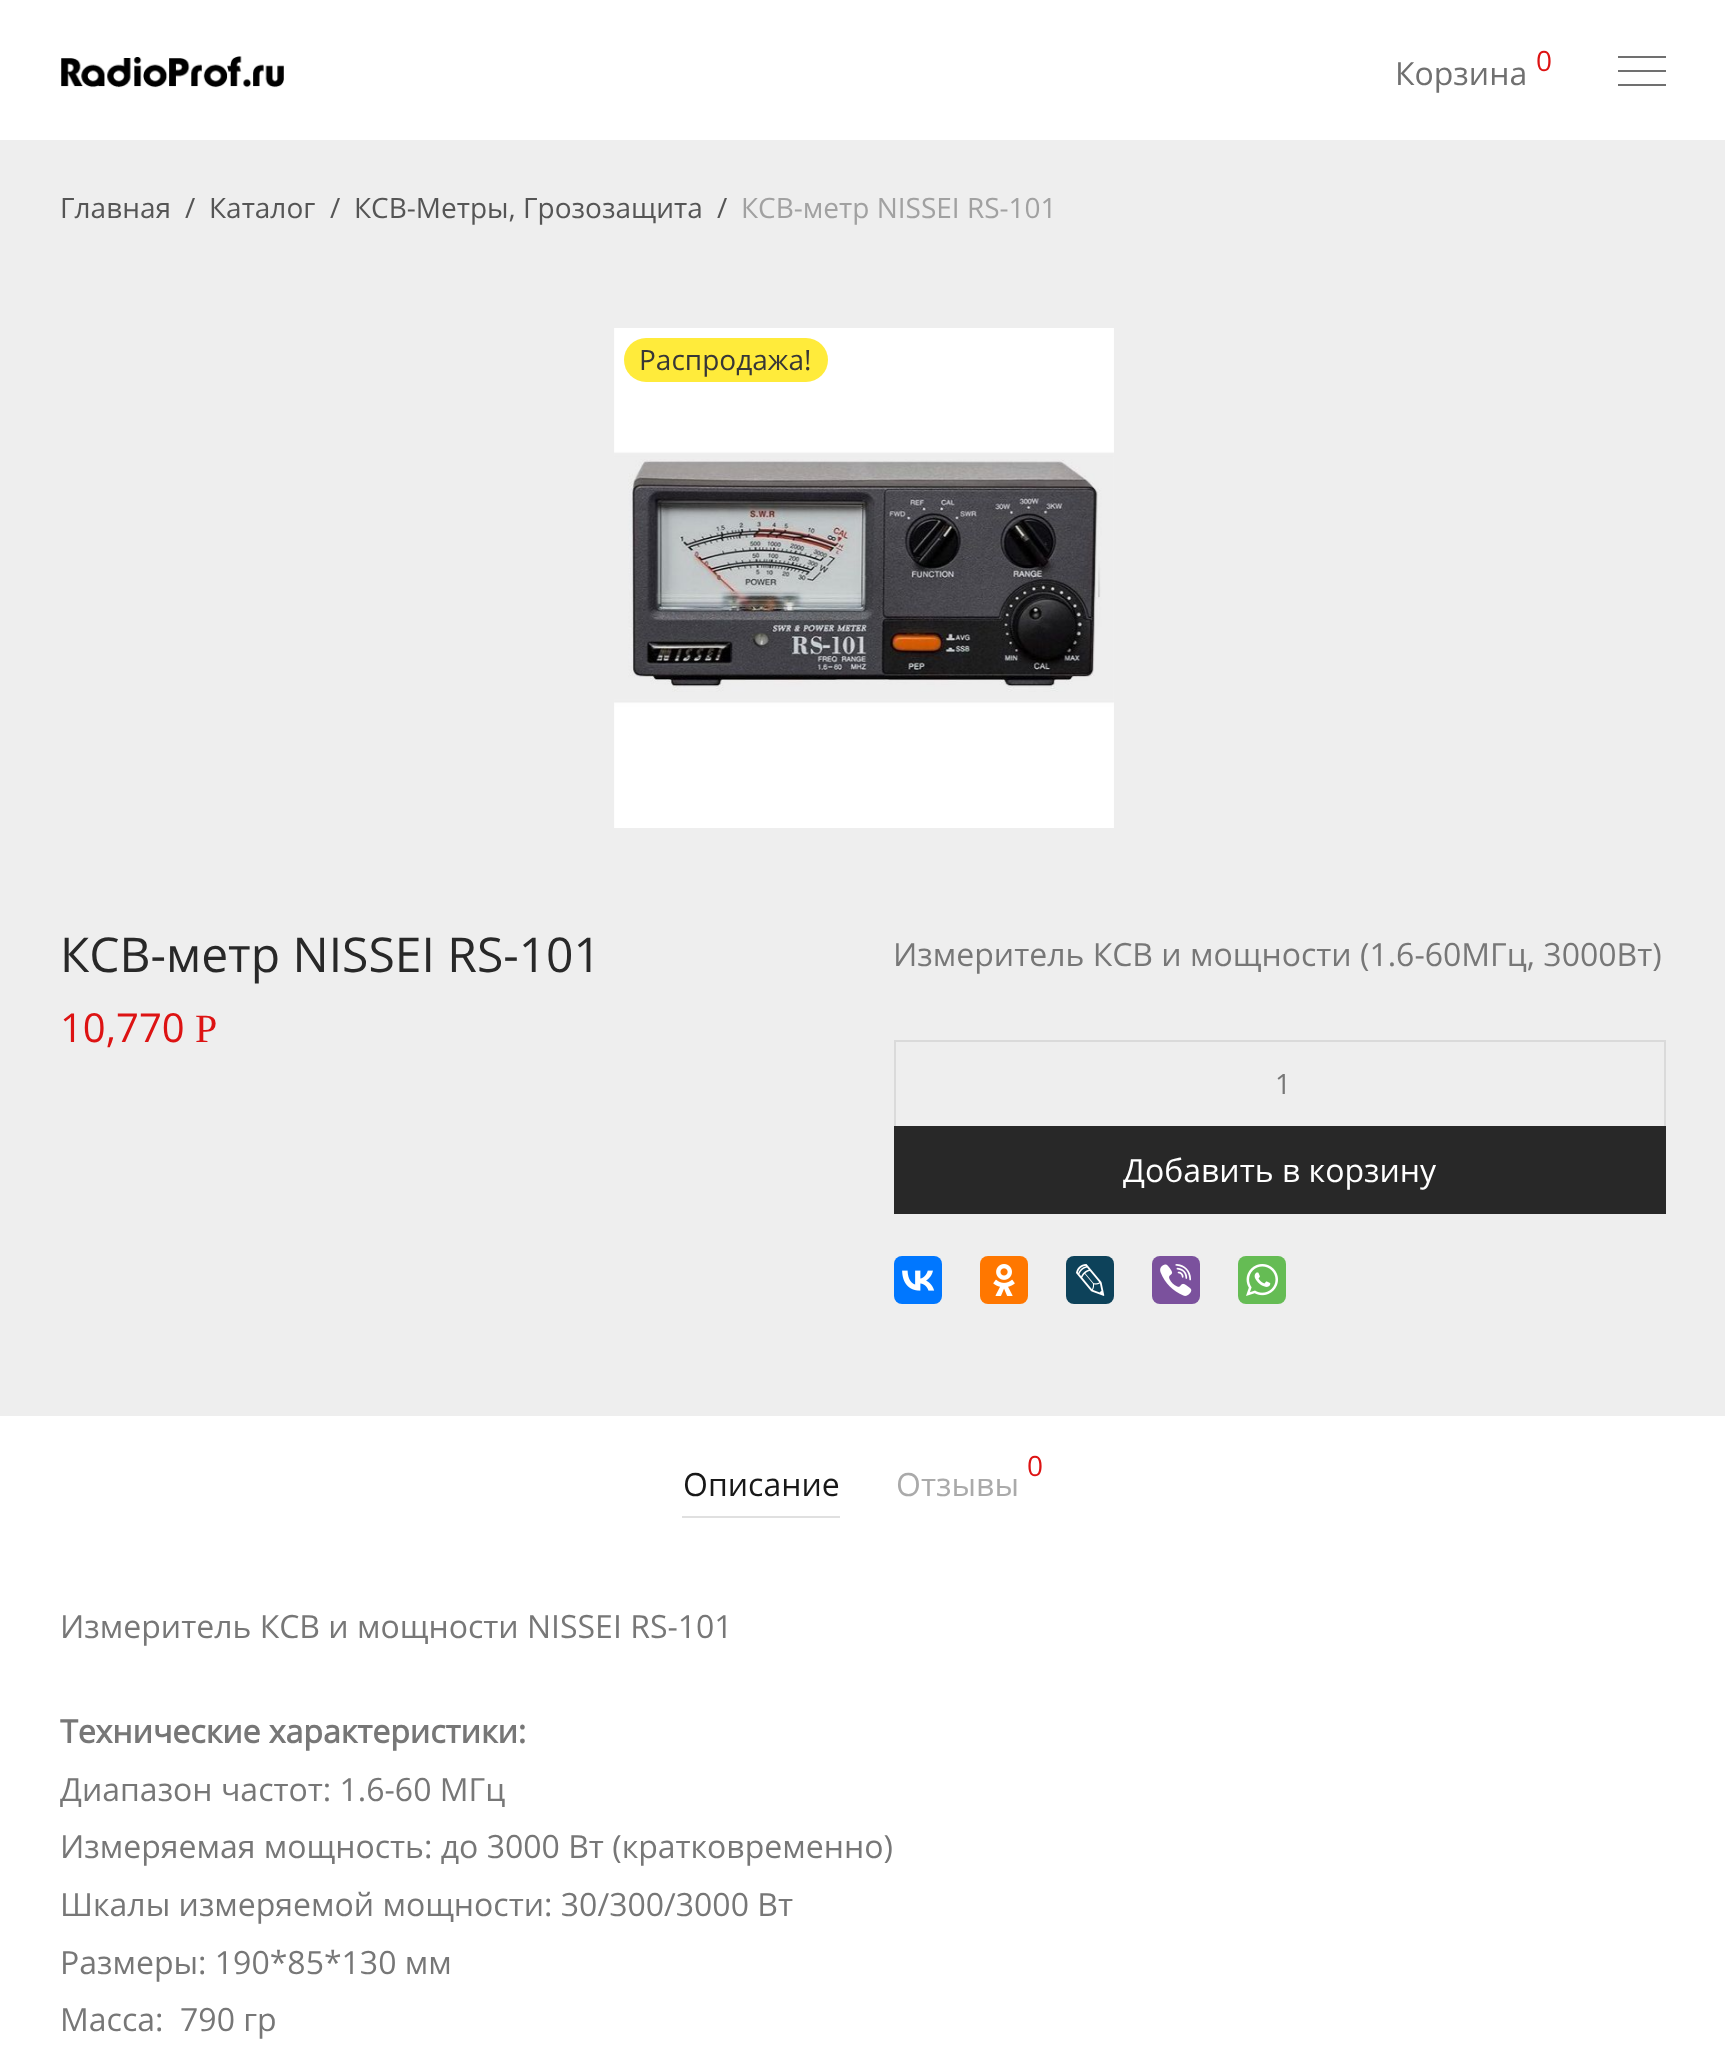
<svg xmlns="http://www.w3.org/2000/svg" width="1725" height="2054">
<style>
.a{font:32px Open Sans;fill:#707070}
.b{font:28px Open Sans;fill:#dd1313}
.c{font:28px Open Sans;fill:#555}
.d{font:28px Open Sans;fill:#a1a1a1}
.e{font:28px Open Sans;fill:#373737}
.f{font:48px Open Sans;fill:#282828}
.g{font:40px Open Sans;fill:#dd1313}
.h{font:40px Liberation Serif;fill:#dd1313}
.i{font:32px Open Sans;fill:#777}
.j{font:28px Open Sans;fill:#777}
.k{font:32px Open Sans;fill:#fff}
.l{font:32px Open Sans;fill:#181818}
.m{font:32px Open Sans;fill:#aaa}
.n{font:bold 32px Open Sans;fill:#777}
</style>
<rect width="100%" height="100%" fill="#fff"/>
<image href="1.png" x="61" y="56" width="223" height="32"/>
<path fill="#707070" d="M1618 56h48v2H1618z"/>
<path fill="#707070" d="M1618 70h48v2H1618z"/>
<path fill="#707070" d="M1618 84h48v2H1618z"/>
<path fill="#eee" d="M0 140h1725v1276H0z"/>
<image href="2.png" x="614" y="328" width="500" height="500"/>
<rect fill="#ffeb3b" x="624" y="338" width="204" height="44" rx="22"/>
<path fill="#dadada" d="M894 1040h772v2H894z"/>
<path fill="#dadada" d="M1664 1040h2v86H1664z"/>
<path fill="#dadada" d="M894 1040h2v86H894z"/>
<path fill="#282828" d="M894 1126h772v88H894z"/>
<rect fill="#07f" x="894" y="1256" width="48" height="48" rx="8"/>
<image href="3.png" x="902" y="1270" width="33" height="21"/>
<rect fill="#f70" x="980" y="1256" width="48" height="48" rx="8"/>
<image href="4.png" x="993" y="1264" width="22" height="32"/>
<rect fill="#0d425a" x="1066" y="1256" width="48" height="48" rx="8"/>
<image href="5.png" x="1076" y="1264" width="29" height="32"/>
<rect fill="#7b519d" x="1152" y="1256" width="48" height="48" rx="8"/>
<image href="6.png" x="1160" y="1264" width="32" height="32"/>
<rect fill="#65bc54" x="1238" y="1256" width="48" height="48" rx="8"/>
<image href="7.png" x="1246" y="1264" width="32" height="32"/>
<path fill="#e0e0e0" d="M682 1516h158v2H682z"/>
<text class="a" x="1395" y="85">Корзина</text>
<text class="b" x="1536" y="71">0</text>
<text class="c" x="60" y="218">Главная</text>
<text class="c" x="185" y="218">/</text>
<text class="c" x="209" y="218">Каталог</text>
<text class="c" x="330" y="218">/</text>
<text class="c" x="354" y="218">КСВ-Метры, Грозозащита</text>
<text class="c" x="717" y="218">/</text>
<text class="d" x="741" y="218">КСВ-метр NISSEI RS-101</text>
<text class="e" x="639" y="370">Распродажа!</text>
<text class="f" x="60" y="972">КСВ-метр NISSEI RS-101</text>
<text class="g" x="60" y="1042">10,770</text>
<text class="h" x="195" y="1042">Р</text>
<text class="i" x="893" y="966">Измеритель КСВ и мощности (1.6-60МГц, 3000Вт)</text>
<text class="j" x="1275" y="1094">1</text>
<text class="k" x="1123" y="1182">Добавить в корзину</text>
<text class="l" x="683" y="1496">Описание</text>
<text class="b" x="1027" y="1476">0</text>
<text class="m" x="896" y="1496">Отзывы</text>
<text class="i" x="60" y="1638">Измеритель КСВ и мощности NISSEI RS-101</text>
<text class="n" x="60" y="1743">Технические характеристики:</text>
<text class="i" x="60" y="1801">Диапазон частот: 1.6-60 МГц</text>
<text class="i" x="60" y="1858">Измеряемая мощность: до 3000 Вт (кратковременно)</text>
<text class="i" x="60" y="1916">Шкалы измеряемой мощности: 30/300/3000 Вт</text>
<text class="i" x="60" y="1974">Размеры: 190*85*130 мм</text>
<text class="i" xml:space="preserve" x="60" y="2031">Масса:  790 гр</text>
</svg>
